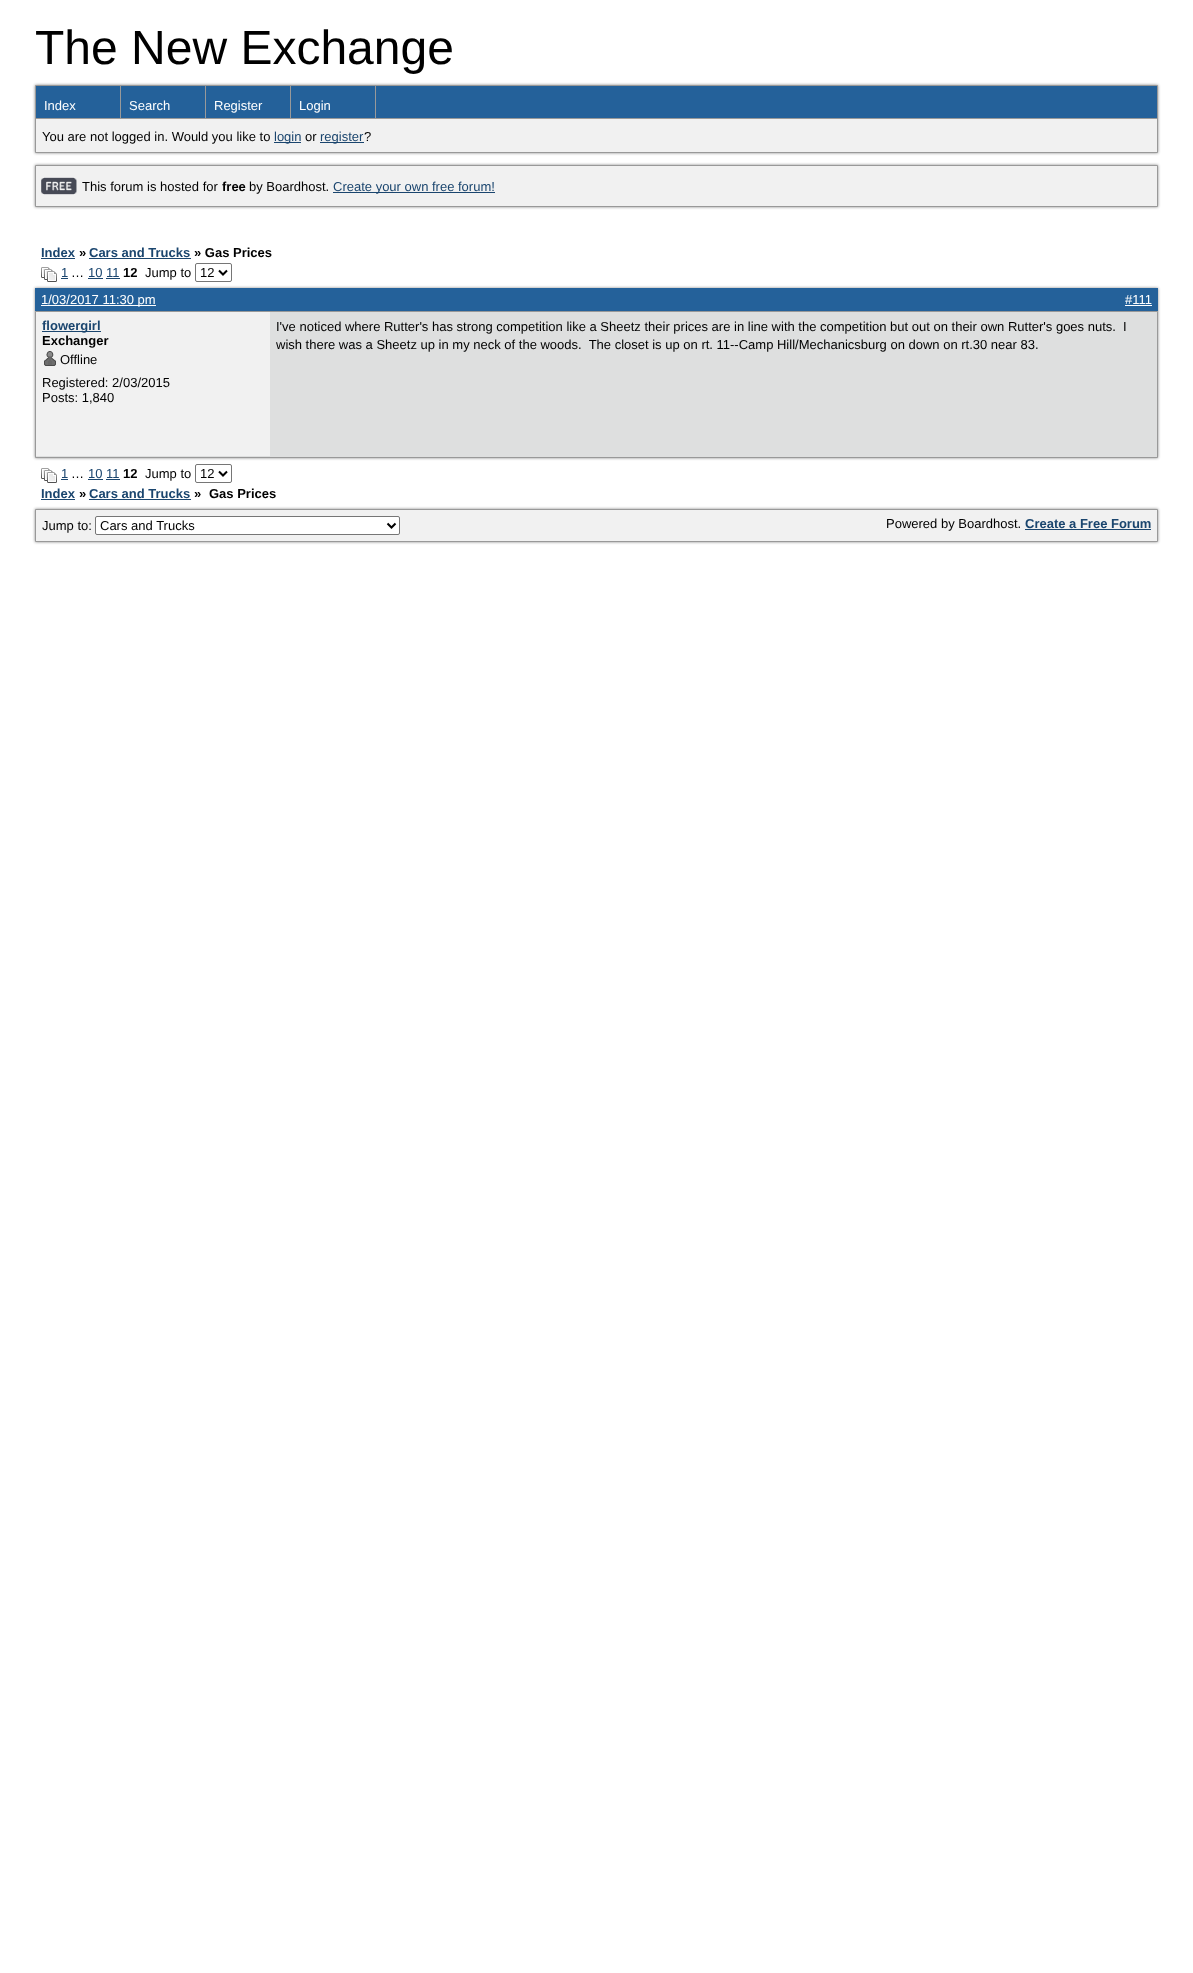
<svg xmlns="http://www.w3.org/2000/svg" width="1193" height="1973">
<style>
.a{font:48px Liberation Sans;fill:#000}
.b{font:13px Liberation Sans;fill:#fff}
.c{font:13px Liberation Sans;fill:#000}
.d{font:13px Liberation Sans;fill:#1a456e}
.e{font:bold 13px Liberation Sans;fill:#000}
.f{font:bold 13px Liberation Sans;fill:#1a456e}
</style>
<rect width="100%" height="100%" fill="#fff"/>
<path fill="#888" filter="blur(1.5px)" d="M35 85h1123v68H35z"/>
<path fill="#f1f1f1" d="M36 119h1121v33H36z"/>
<path fill="none" stroke="#999" d="M35.5 85.5h1122v67H35.5z"/>
<path fill="#24619a" d="M36 86h1121v32H36z"/>
<path fill="#999" d="M36 118h1121v1H36z"/>
<path fill="#999" d="M120 86h1v32H120z"/>
<path fill="#999" d="M205 86h1v32H205z"/>
<path fill="#999" d="M290 86h1v32H290z"/>
<path fill="#999" d="M375 86h1v32H375z"/>
<path fill="#1a456e" d="M274 142h27v1H274z"/>
<path fill="#1a456e" d="M320 142h44v1H320z"/>
<path fill="#888" filter="blur(1.5px)" d="M35 165h1123v42H35z"/>
<path fill="#f1f1f1" stroke="#999" d="M35.5 165.5h1122v41H35.5z"/>
<image href="1.png" x="41" y="177" width="36" height="18"/>
<path fill="#1a456e" d="M333 192h162v1H333z"/>
<path fill="#1a456e" d="M41 258h34v1H41z"/>
<path fill="#1a456e" d="M89 258h102v1H89z"/>
<image href="2.png" x="41" y="267" width="16" height="15"/>
<path fill="#1a456e" d="M61 278h7v1H61z"/>
<path fill="#1a456e" d="M88 278h15v1H88z"/>
<rect fill="none" stroke="#767676" x="195.5" y="263.5" width="36" height="18" rx="1.5"/>
<path fill="none" stroke="#000" stroke-width="2" d="M219 270.5l4 4l4-4"/>
<path fill="#1a456e" d="M106 278h14v1H106z"/>
<path fill="#888" filter="blur(1.5px)" d="M35 288h1123v170H35z"/>
<path fill="#24619a" d="M35 288h1123v23H35z"/>
<path fill="#fff" d="M41 305h115v1H41z"/>
<path fill="#fff" d="M1125 305h27v1H1125z"/>
<path fill="#dedfdf" stroke="#999" d="M35.5 311.5h1122v146H35.5z"/>
<path fill="#f1f1f1" d="M36 312h234v144H36z"/>
<path fill="#1a456e" d="M42 331h59v1H42z"/>
<image href="3.png" x="44" y="351" width="12" height="15"/>
<image href="2.png" x="41" y="468" width="16" height="15"/>
<path fill="#1a456e" d="M61 479h7v1H61z"/>
<path fill="#1a456e" d="M88 479h15v1H88z"/>
<rect fill="none" stroke="#767676" x="195.5" y="464.5" width="36" height="18" rx="1.5"/>
<path fill="none" stroke="#000" stroke-width="2" d="M219 471.5l4 4l4-4"/>
<path fill="#1a456e" d="M106 479h14v1H106z"/>
<path fill="#1a456e" d="M41 499h34v1H41z"/>
<path fill="#1a456e" d="M89 499h102v1H89z"/>
<path fill="#888" filter="blur(1.5px)" d="M35 509h1123v33H35z"/>
<path fill="#f1f1f1" stroke="#999" d="M35.5 509.5h1122v32H35.5z"/>
<rect fill="#fff" stroke="#767676" x="95.5" y="516.5" width="304" height="18" rx="1.5"/>
<path fill="none" stroke="#000" stroke-width="2" d="M387.5 523.5l4 4l4-4"/>
<path fill="#1a456e" d="M1025 529h126v1H1025z"/>
<text class="a" x="35" y="64">The New Exchange</text>
<text class="b" x="44" y="110">Index</text>
<text class="b" x="129" y="110">Search</text>
<text class="b" x="214" y="110">Register</text>
<text class="b" x="299" y="110">Login</text>
<text class="c" x="42" y="141">You are not logged in. Would you like to</text>
<text class="d" x="274" y="141">login</text>
<text class="c" x="305" y="141">or</text>
<text class="d" x="320" y="141">register</text>
<text class="c" x="364" y="141">?</text>
<text class="c" x="82" y="191">This forum is hosted for</text>
<text class="e" x="222" y="191">free</text>
<text class="c" x="249" y="191">by Boardhost.</text>
<text class="d" x="333" y="191">Create your own free forum!</text>
<text class="f" x="41" y="257">Index</text>
<text class="e" x="79" y="257">»</text>
<text class="f" x="89" y="257">Cars and Trucks</text>
<text class="e" x="194" y="257">» Gas Prices</text>
<text class="d" x="61" y="277">1</text>
<text class="c" x="71" y="277">…</text>
<text class="d" x="88" y="277">10 11</text>
<text class="e" x="123" y="277">12</text>
<text class="c" x="145" y="277">Jump to</text>
<text class="c" x="200" y="277">12</text>
<text class="b" x="41" y="304">1/03/2017 11:30 pm</text>
<text class="b" x="1125" y="304">#111</text>
<text class="f" x="42" y="330">flowergirl</text>
<text class="e" x="42" y="345">Exchanger</text>
<text class="c" x="60" y="364">Offline</text>
<text class="c" x="42" y="387">Registered: 2/03/2015</text>
<text class="c" x="42" y="402">Posts: 1,840</text>
<text class="c" xml:space="preserve" x="276" y="331">I've noticed where Rutter's has strong competition like a Sheetz their prices are in line with the competition but out on their own Rutter's goes nuts.  I</text>
<text class="c" xml:space="preserve" x="276" y="349">wish there was a Sheetz up in my neck of the woods.  The closet is up on rt. 11--Camp Hill/Mechanicsburg on down on rt.30 near 83.</text>
<text class="d" x="61" y="478">1</text>
<text class="c" x="71" y="478">…</text>
<text class="d" x="88" y="478">10 11</text>
<text class="e" x="123" y="478">12</text>
<text class="c" x="145" y="478">Jump to</text>
<text class="c" x="200" y="478">12</text>
<text class="f" x="41" y="498">Index</text>
<text class="e" x="79" y="498">»</text>
<text class="f" x="89" y="498">Cars and Trucks</text>
<text class="e" x="194" y="498">»</text>
<text class="e" x="209" y="498">Gas Prices</text>
<text class="c" x="42" y="530">Jump to:</text>
<text class="c" x="100" y="530">Cars and Trucks</text>
<text class="c" x="886" y="528">Powered by Boardhost.</text>
<text class="f" x="1025" y="528">Create a Free Forum</text>
</svg>
